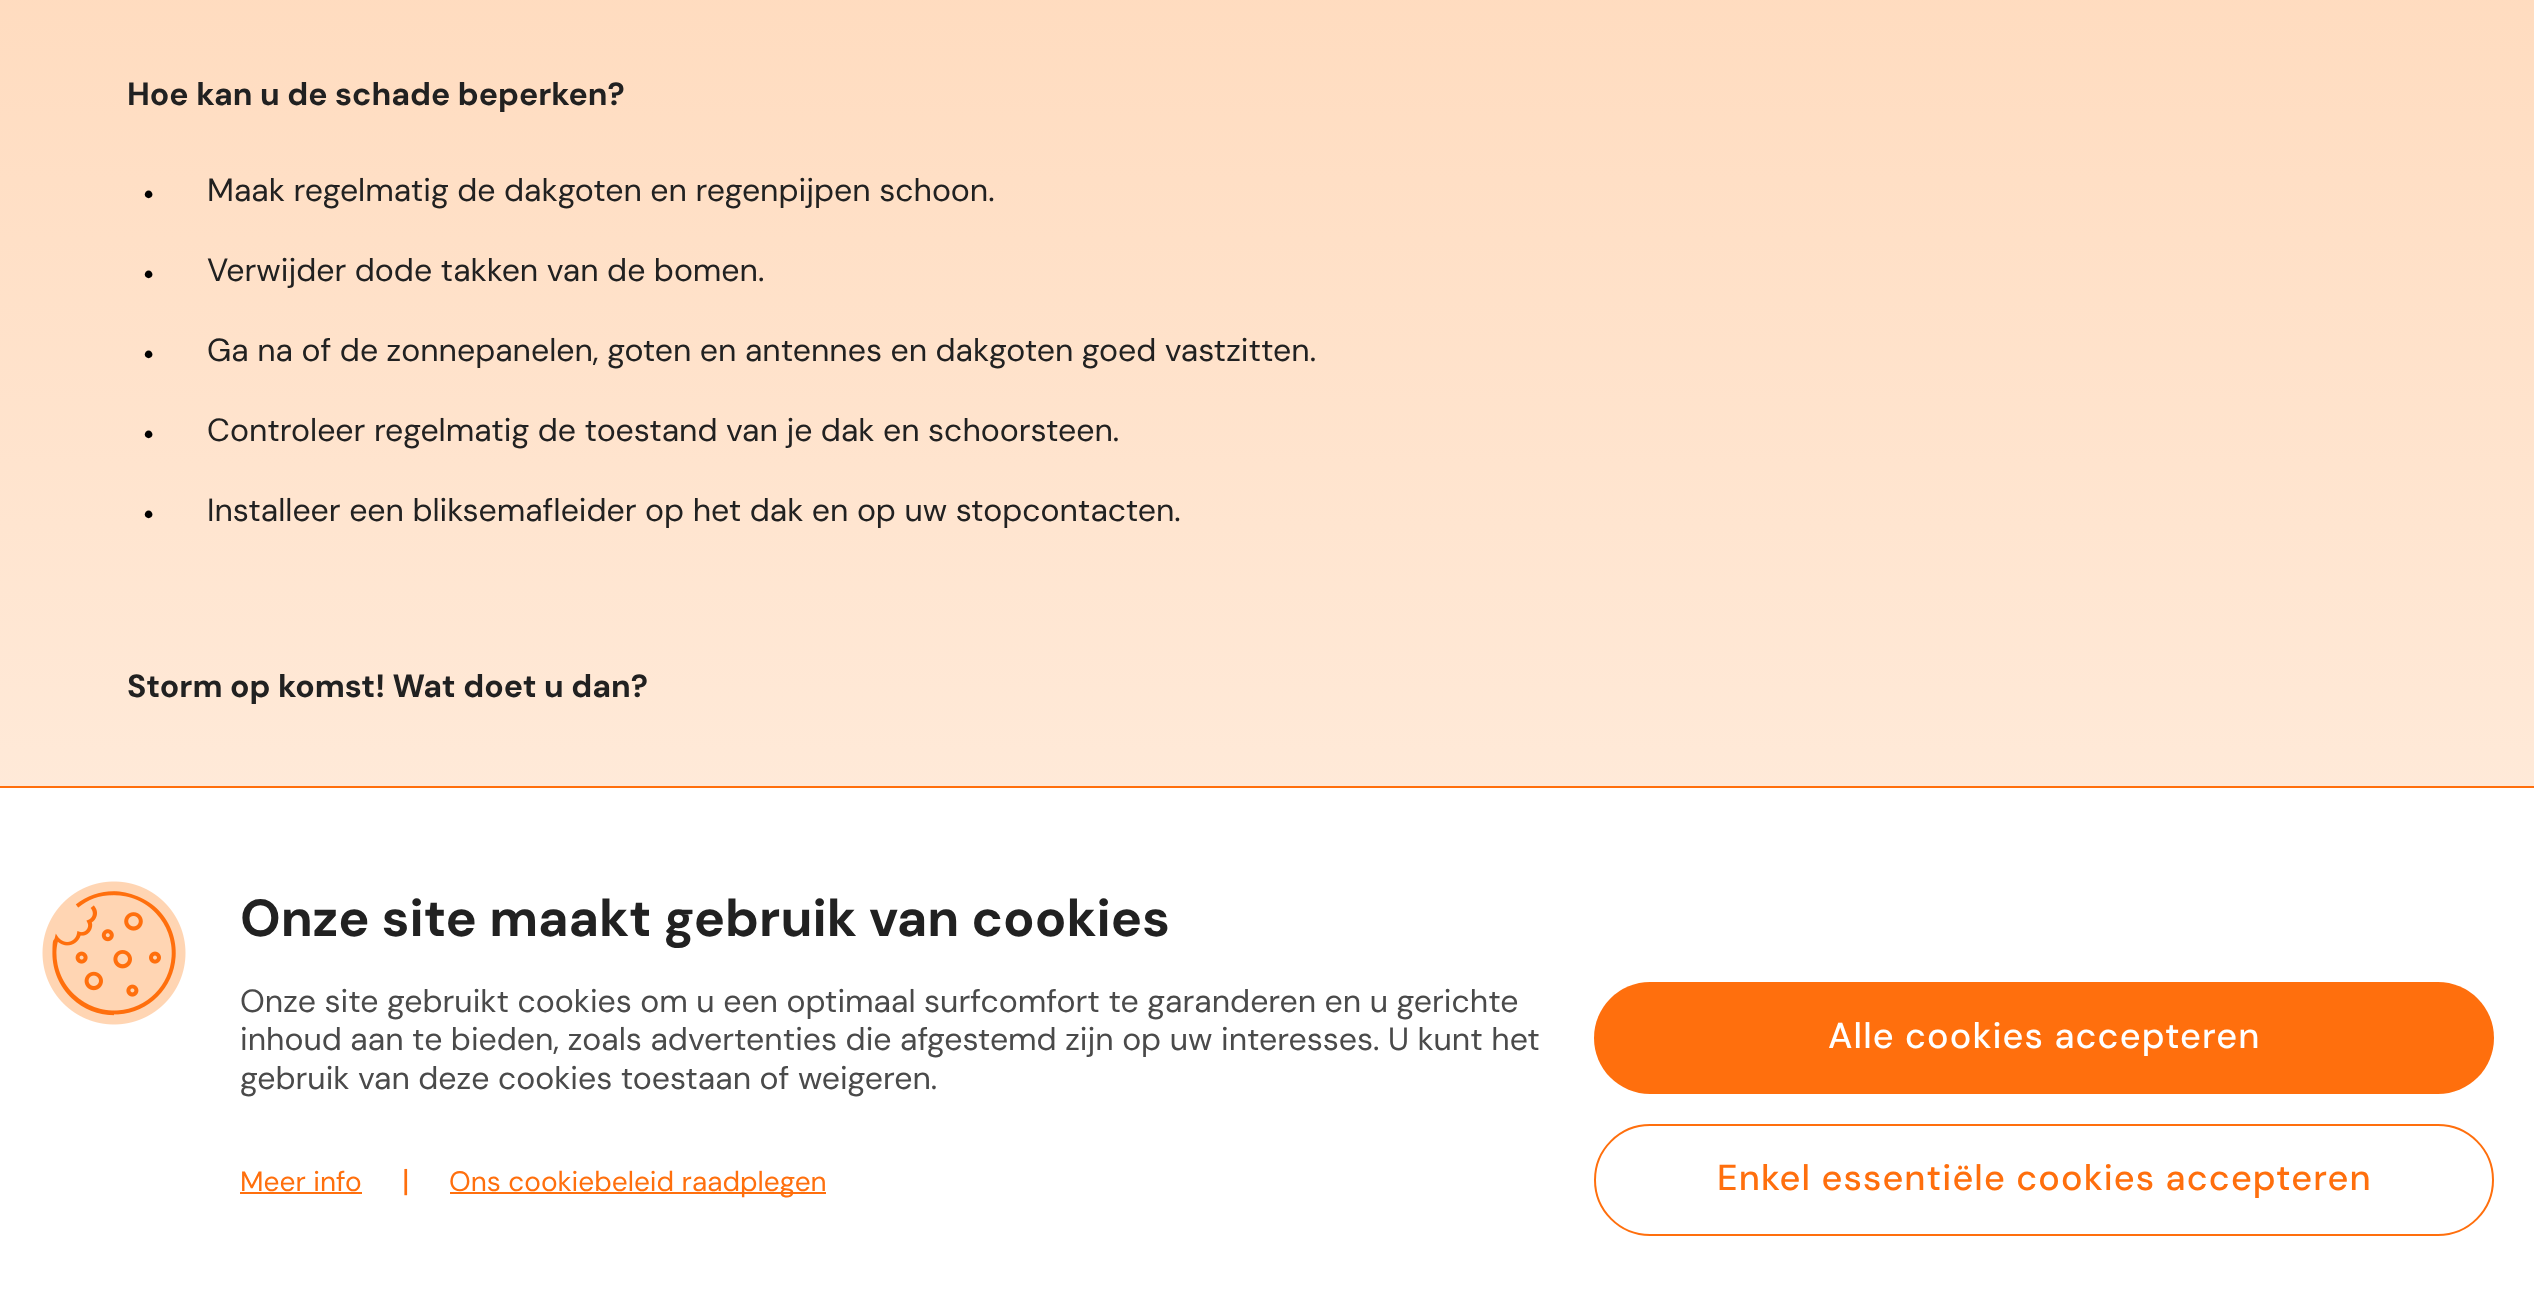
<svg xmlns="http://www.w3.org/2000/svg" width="2534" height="1305">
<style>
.a{font:bold 32px DM Sans;fill:#212121}
.b{font:32px Liberation Serif;fill:#000}
.c{font:32px DM Sans;fill:#212121}
.d{font:bold 52px DM Sans;fill:#212121}
.e{font:32px DM Sans;fill:#4a4a4a}
.f{font:500 36px DM Sans;letter-spacing:1.1px;fill:#fff}
.g{font:500 36px DM Sans;letter-spacing:1.1px;fill:#ff6f0d}
.h{font:28px DM Sans;fill:#ff6f0d}
.i{font:32px DM Sans;fill:#ff6f0d}
</style>
<defs>
<linearGradient id="g1" gradientUnits="userSpaceOnUse" x1="1267" y1="-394" x2="1267" y2="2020"><stop offset="0" stop-color="#ffd5b3"/><stop offset="1" stop-color="#fff"/></linearGradient>
</defs>
<rect width="100%" height="100%" fill="#fff"/>
<path fill="url(#g1)" d="M0 0h2534v786H0z"/>
<path fill="#ff6f0d" d="M0 786h2534v2H0z"/>
<image href="1.png" x="42" y="881" width="144" height="144"/>
<rect fill="#ff6f0d" x="1594" y="982" width="900" height="112" rx="56"/>
<rect fill="none" stroke="#ff6f0d" stroke-width="2" x="1595" y="1125" width="898" height="110" rx="55"/>
<path fill="#ff6f0d" d="M240 1192h122v2H240z"/>
<path fill="#ff6f0d" d="M450 1192h376v2H450z"/>
<text class="a" x="127" y="105">Hoe kan u de schade beperken?</text>
<text class="b" x="143" y="205">•</text>
<text class="c" x="207" y="201">Maak regelmatig de dakgoten en regenpijpen schoon.</text>
<text class="b" x="143" y="285">•</text>
<text class="c" x="207" y="281">Verwijder dode takken van de bomen.</text>
<text class="b" x="143" y="365">•</text>
<text class="c" x="207" y="361">Ga na of de zonnepanelen, goten en antennes en dakgoten goed vastzitten.</text>
<text class="b" x="143" y="445">•</text>
<text class="c" x="207" y="441">Controleer regelmatig de toestand van je dak en schoorsteen.</text>
<text class="b" x="143" y="525">•</text>
<text class="c" x="207" y="521">Installeer een bliksemafleider op het dak en op uw stopcontacten.</text>
<text class="a" x="127" y="697">Storm op komst! Wat doet u dan?</text>
<text class="d" x="240" y="936">Onze site maakt gebruik van cookies</text>
<text class="e" x="240" y="1012">Onze site gebruikt cookies om u een optimaal surfcomfort te garanderen en u gerichte</text>
<text class="e" x="240" y="1050">inhoud aan te bieden, zoals advertenties die afgestemd zijn op uw interesses. U kunt het</text>
<text class="e" x="240" y="1089">gebruik van deze cookies toestaan of weigeren.</text>
<text class="f" x="1828" y="1048">Alle cookies accepteren</text>
<text class="g" x="1717" y="1190">Enkel essentiële cookies accepteren</text>
<text class="h" x="240" y="1191">Meer info</text>
<text class="i" x="402" y="1192">|</text>
<text class="h" x="449" y="1191">Ons cookiebeleid raadplegen</text>
</svg>
